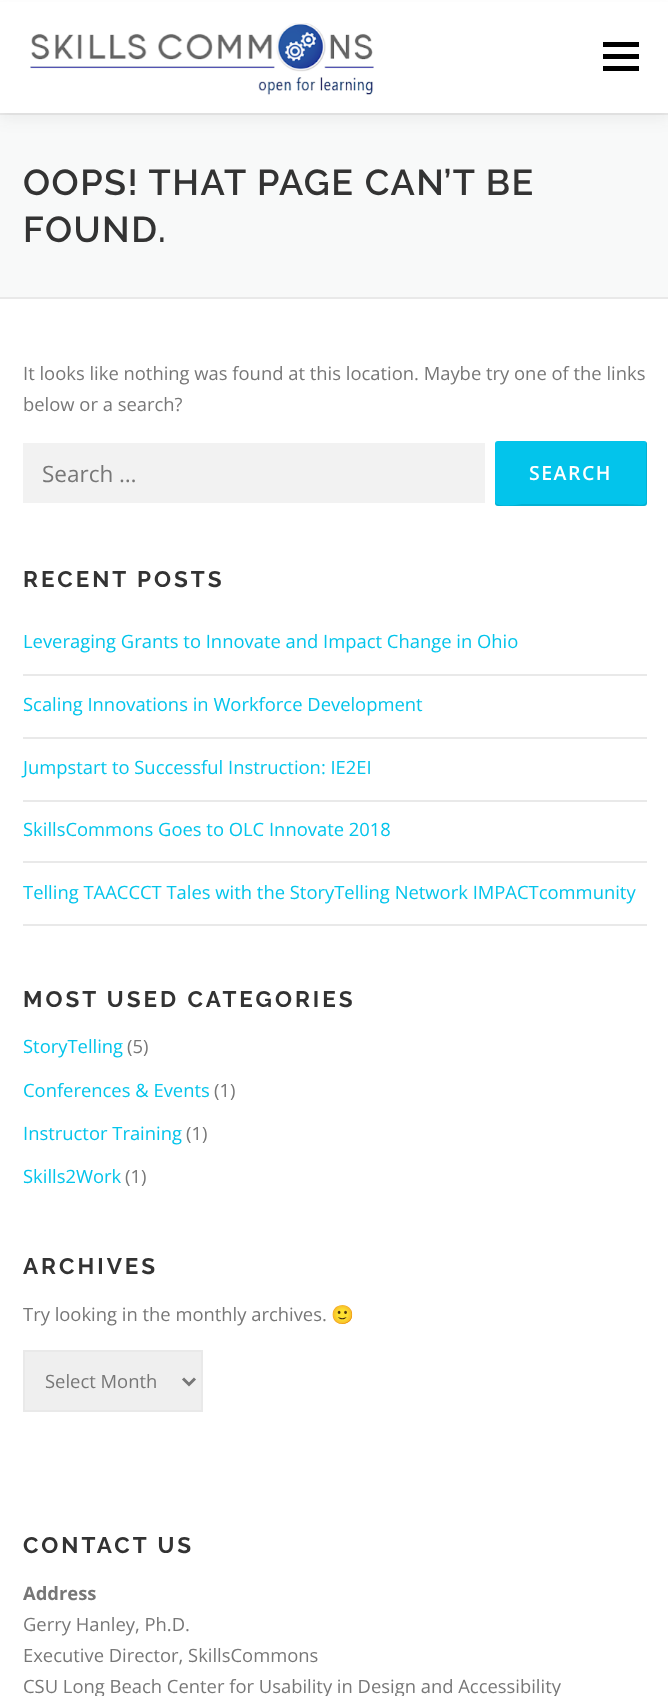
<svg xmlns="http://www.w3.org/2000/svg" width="668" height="1696">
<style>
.a{font:600 36px Raleway;letter-spacing:1.5px;fill:#333}
.b{font:18.4px Open Sans;fill:#777}
.c{font:22.5px Open Sans;fill:#777}
.d{font:600 19.5px Open Sans;letter-spacing:1.5px;fill:#fff}
.e{font:bold 22.5px Raleway;letter-spacing:3px;fill:#333}
.f{font:18.4px Open Sans;fill:#03c4eb}
.g{font:18.4px Noto Color Emoji;fill:#777}
.h{font:bold 18.4px Open Sans;fill:#777}
</style>
<rect width="100%" height="100%" fill="#fff"/>
<path fill="#f8f9f9" d="M0 115h668v182H0z"/>
<path fill="#e9e9e9" d="M0 113h668v2H0z"/>
<path fill="#3232320f" filter="blur(7.5px)" d="M0 8h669v112H0z"/>
<path fill="#fff" d="M0 2h668v111H0z"/>
<image href="1.png" x="30" y="23" width="344" height="72"/>
<path fill="#000" d="M603 54h36v5H603z"/>
<path fill="#000" d="M603 42h36v5H603z"/>
<path fill="#000" d="M603 66h36v5H603z"/>
<path fill="#e9e9e9" d="M0 297h668v2H0z"/>
<path fill="#f2f2f2" d="M23 443h462v60H23z"/>
<rect fill="#03c4eb" x="495" y="441" width="152" height="65" rx="3"/>
<path fill="#0000001a" d="M495 501v2c0 2 1 3 3 3h146c2 0 3-1 3-3v-59c0-1 0-2-1-2v39c0 30 6 23-26 23h-98c-2 0-27 5-27-3z"/>
<path fill="#e9e9e9" d="M23 674h624v2H23z"/>
<path fill="#e9e9e9" d="M23 737h624v2H23z"/>
<path fill="#e9e9e9" d="M23 800h624v2H23z"/>
<path fill="#e9e9e9" d="M23 861h624v2H23z"/>
<path fill="#e9e9e9" d="M23 924h624v2H23z"/>
<path fill="#efefef" stroke="#e9e9e9" stroke-width="2" d="M24 1351h178v60H24z"/>
<path fill="none" stroke="#777" stroke-width="3" d="M183 1378.5l6 6l6-6"/>
<text class="a" x="23" y="195">OOPS! THAT PAGE CAN’T BE</text>
<text class="a" x="23" y="242">FOUND.</text>
<text class="b" x="23" y="380">It looks like nothing was found at this location. Maybe try one of the links</text>
<text class="b" x="23" y="411">below or a search?</text>
<text class="c" x="42" y="482">Search …</text>
<text class="d" x="529" y="480">SEARCH</text>
<text class="e" x="23" y="587">RECENT POSTS</text>
<text class="f" x="23" y="648">Leveraging Grants to Innovate and Impact Change in Ohio</text>
<text class="f" x="23" y="711">Scaling Innovations in Workforce Development</text>
<text class="f" x="23" y="774">Jumpstart to Successful Instruction: IE2EI</text>
<text class="f" x="23" y="836">SkillsCommons Goes to OLC Innovate 2018</text>
<text class="f" x="23" y="899">Telling TAACCCT Tales with the StoryTelling Network IMPACTcommunity</text>
<text class="e" x="23" y="1007">MOST USED CATEGORIES</text>
<text class="f" x="23" y="1053">StoryTelling</text>
<text class="b" x="127" y="1053">(5)</text>
<text class="f" x="23" y="1097">Conferences &amp; Events</text>
<text class="b" x="214" y="1097">(1)</text>
<text class="f" x="23" y="1140">Instructor Training</text>
<text class="b" x="186" y="1140">(1)</text>
<text class="f" x="23" y="1183">Skills2Work</text>
<text class="b" x="125" y="1183">(1)</text>
<text class="e" x="23" y="1274">ARCHIVES</text>
<text class="b" x="23" y="1321">Try looking in the monthly archives.</text>
<text class="g" x="331" y="1321">🙂</text>
<text class="b" x="45" y="1388">Select Month</text>
<text class="e" x="23" y="1553">CONTACT US</text>
<text class="h" x="23" y="1600">Address</text>
<text class="b" x="23" y="1631">Gerry Hanley, Ph.D.</text>
<text class="b" x="23" y="1662">Executive Director, SkillsCommons</text>
<text class="b" x="23" y="1693">CSU Long Beach Center for Usability in Design and Accessibility</text>
</svg>
